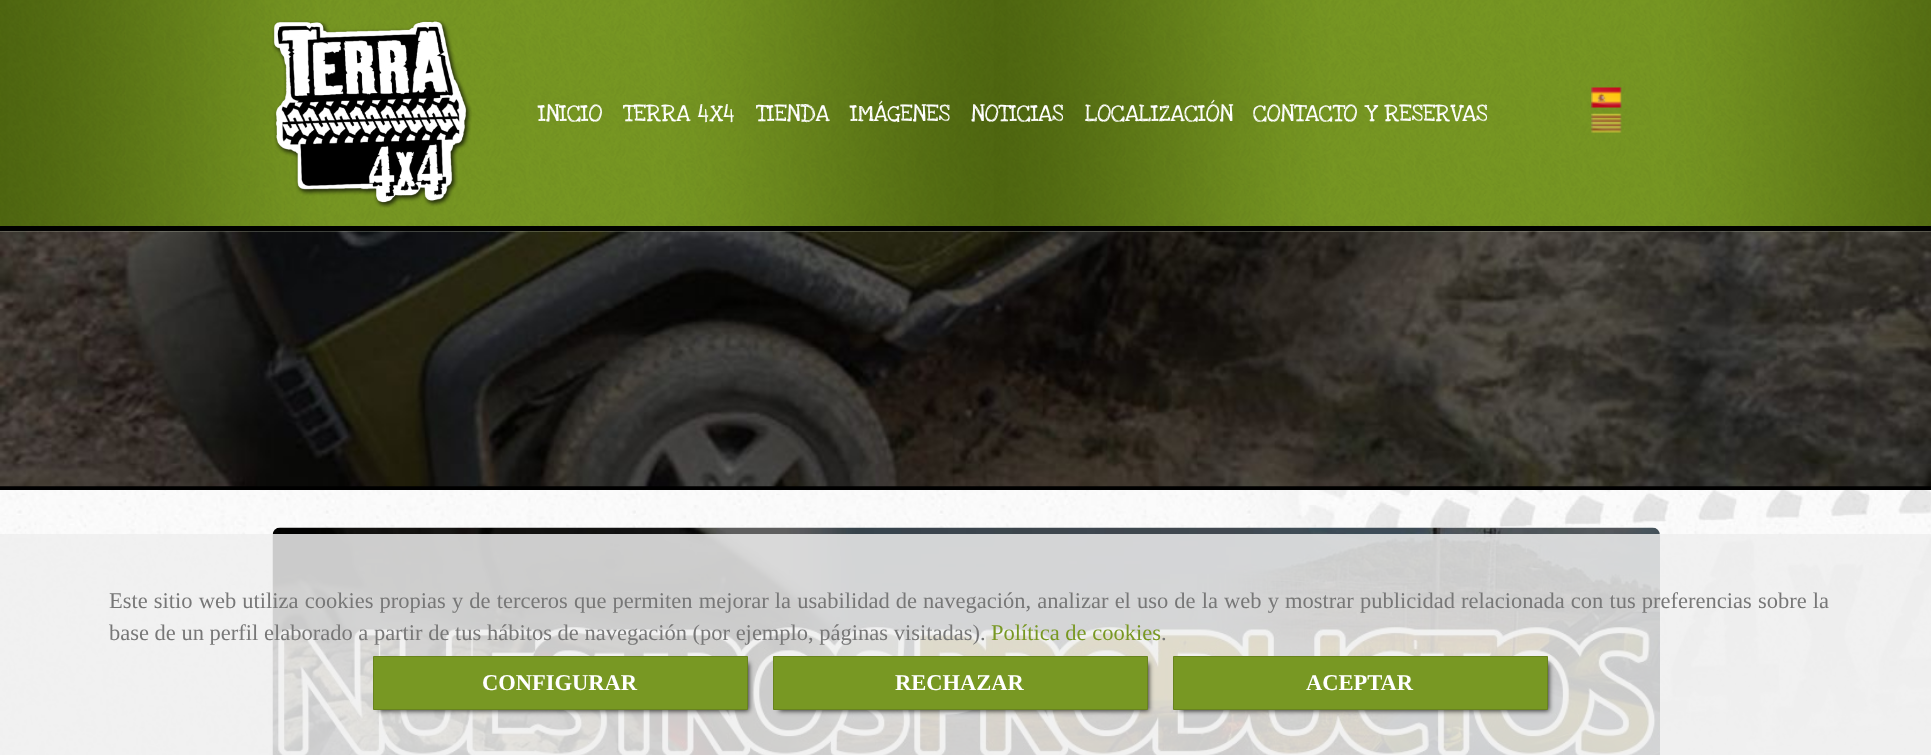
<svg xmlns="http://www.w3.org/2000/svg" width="1931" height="755">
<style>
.a{font:24.5px Love Ya Like A Sister;fill:#fff}
.b{font:22.5px Liberation Serif;fill:#777}
.c{font:22.5px Liberation Serif;fill:#789823}
.d{font:bold 22.5px Liberation Serif;fill:#fff}
</style>
<rect width="100%" height="100%" fill="#fff"/>
<image href="1.png" x="0" y="231" width="1931" height="524"/>
<image href="2.png" x="0" y="0" width="1931" height="232"/>
<path fill="#000" d="M0 226h1931v5H0z"/>
<image href="3.png" x="272" y="20" width="200" height="188"/>
<image href="4.png" x="1591" y="87" width="31" height="21"/>
<image href="5.png" x="1591" y="113" width="31" height="20"/>
<path fill="#000" d="M0 486h1931v4H0z"/>
<image href="6.png" x="0" y="231" width="1931" height="256"/>
<image href="7.png" x="272" y="527" width="1388" height="228"/>
<path fill="#eeeeeed9" d="M0 534h1931v221H0z"/>
<path fill="#000000bf" filter="blur(2.5px)" d="M379 663h370v48H379z"/>
<path fill="#789823" stroke="#68831e" d="M373.5 656.5h374v53H373.5z"/>
<path fill="#000000bf" filter="blur(2.5px)" d="M779 663h370v48H779z"/>
<path fill="#789823" stroke="#68831e" d="M773.5 656.5h374v53H773.5z"/>
<path fill="#000000bf" filter="blur(2.5px)" d="M1179 663h370v48H1179z"/>
<path fill="#789823" stroke="#68831e" d="M1173.5 656.5h374v53H1173.5z"/>
<text class="a" x="538" y="121">INICIO</text>
<text class="a" x="623" y="121">TERRA 4X4</text>
<text class="a" x="756" y="121">TIENDA</text>
<text class="a" x="850" y="121">IMÁGENES</text>
<text class="a" x="971" y="121">NOTICIAS</text>
<text class="a" x="1085" y="121">LOCALIZACIÓN</text>
<text class="a" x="1253" y="121">CONTACTO Y RESERVAS</text>
<text class="b" x="109" y="608" word-spacing="0.5">Este sitio web utiliza cookies propias y de terceros que permiten mejorar la usabilidad de navegación, analizar el uso de la web y mostrar publicidad relacionada con tus preferencias sobre la</text>
<text class="b" x="109" y="640">base de un perfil elaborado a partir de tus hábitos de navegación (por ejemplo, páginas visitadas).</text>
<text class="c" x="991" y="640">Política de cookies</text>
<text class="b" x="1161" y="640">.</text>
<text class="d" x="482" y="690">CONFIGURAR</text>
<text class="d" x="895" y="690">RECHAZAR</text>
<text class="d" x="1306" y="690">ACEPTAR</text>
</svg>
